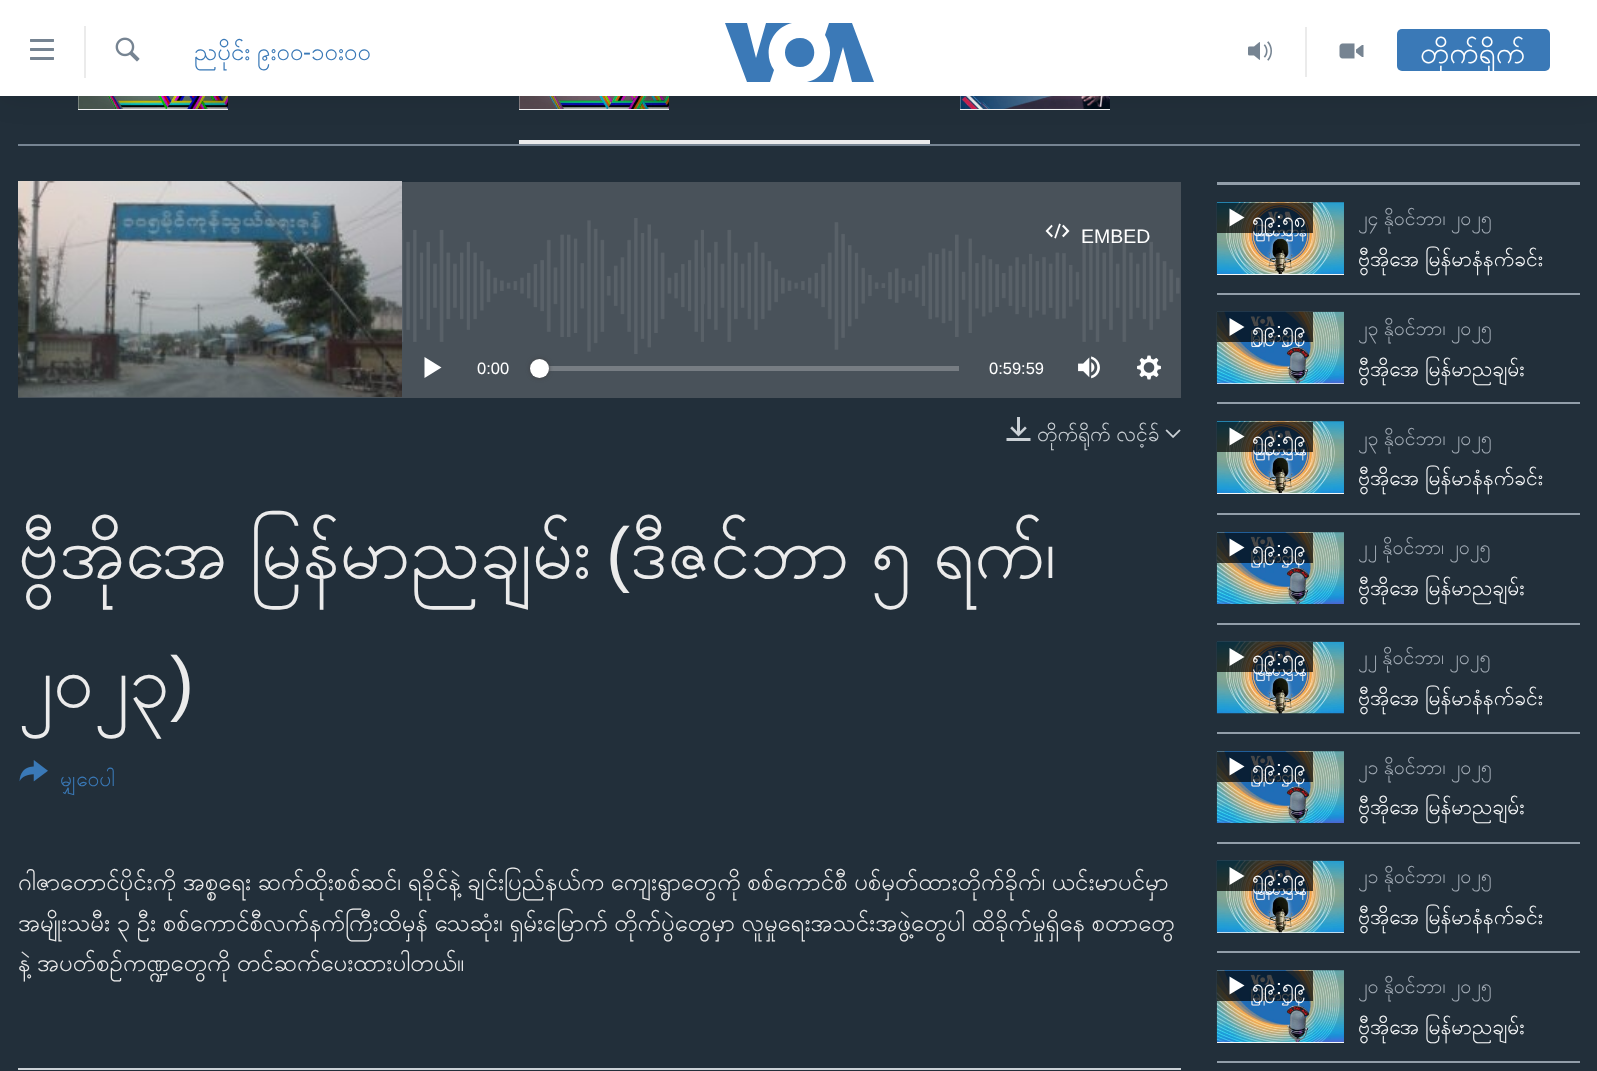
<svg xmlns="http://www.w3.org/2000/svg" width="1597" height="1071">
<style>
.a{font:24px Padauk;fill:#3a79b7}
.b{font:24px Liberation Sans;fill:#3a79b7}
.c{font:30px Padauk;fill:#fff}
.d{font:19.5px Liberation Sans;fill:#fff}
.e{font:16.5px Liberation Sans;fill:#fff}
.f{font:21px Padauk;fill:#cbd1d6}
.g{font:72px Padauk;fill:#ebebeb}
.h{font:72px Liberation Sans;fill:#ebebeb}
.i{font:21px Padauk;fill:#3a79b7}
.j{font:24px Padauk;fill:#ebebeb}
.k{font:21px Padauk;fill:#fff}
.l{font:21px Liberation Sans;fill:#fff}
.m{font:19.5px Padauk;fill:#a1aab4}
.n{font:21px Padauk;fill:#f6f7f8}
</style>
<rect width="100%" height="100%" fill="#222f3a"/>
<path fill="#f6f7f8" d="M78 96h150v14H78z"/>
<image href="5.png" x="78" y="96" width="150" height="13"/>
<path fill="#ebebeb" d="M519 140h411v4H519z"/>
<path fill="#f6f7f8" d="M519 96h150v14H519z"/>
<image href="6.png" x="519" y="96" width="150" height="13"/>
<path fill="#f6f7f8" d="M960 96h150v14H960z"/>
<image href="7.png" x="960" y="96" width="150" height="13"/>
<path fill="#0000001a" filter="blur(15px)" d="M0 0h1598v96H0z"/>
<path fill="#fff" d="M0 0h1597v96H0z"/>
<image href="1.png" x="30" y="39" width="24" height="21"/>
<path fill="#ebebeb" d="M84 26h2v52H84z"/>
<image href="2.png" x="115" y="37" width="25" height="25"/>
<path fill="#3b79b7" d="M774 70l-4 12h-23l-22-59h22l9 35l10-35h26c-21 5-30 30-18 47zm26-32c-20 0-20 29 0 29c19 0 19-29 0-29zm30 14c0 15-9 27-23 30h26l10-35l9 35h22l-22-59h-23l-4 12c3 5 5 11 5 17z"/>
<path fill="#ebebeb" d="M1305 27h2v50H1305z"/>
<image href="3.png" x="1248" y="41" width="24" height="20"/>
<image href="4.png" x="1339" y="43" width="25" height="16"/>
<rect fill="#3a79b7" x="1397" y="29" width="153" height="42" rx="5"/>
<path fill="#768492" d="M18 144h1562v2H18z"/>
<path fill="#49525a" d="M18 182h1163v216H18z"/>
<image href="8.png" x="402" y="218" width="778" height="136"/>
<image href="9.png" x="18" y="181" width="384" height="216"/>
<image href="10.png" x="1045" y="223" width="25" height="16"/>
<path fill="#fff" d="M424.5 378l17-10.5l-17-10.5z"/>
<path fill="#777d83" d="M548 366h411v5H548z"/>
<rect fill="#414144" filter="blur(2px)" x="530" y="359" width="19" height="19" rx="9.5"/>
<circle fill="#fff" cx="539.5" cy="368.5" r="9.5"/>
<image href="11.png" x="1078" y="356" width="22" height="23"/>
<image href="12.png" x="1137" y="355" width="24" height="25"/>
<image href="13.png" x="1006" y="417" width="25" height="24"/>
<image href="14.png" x="1165" y="429" width="16" height="9"/>
<image href="15.png" x="19" y="760" width="29" height="22"/>
<path fill="#cbd1d6" d="M18 1068h1163v2H18z"/>
<path fill="#929ea9" d="M1217 182h363v3H1217z"/>
<path fill="#f6f7f8" d="M1217 274h127v1H1217z"/>
<image href="16.png" x="1216" y="202" width="128" height="72"/>
<path fill="#000000b3" d="M1217 203h96v30H1217z"/>
<path fill="#fff" d="M1229.5 226.5l15-9l-15-9z"/>
<path fill="#929ea9" d="M1217 293h363v2H1217z"/>
<path fill="#f6f7f8" d="M1217 383h127v1H1217z"/>
<image href="17.png" x="1216" y="311" width="128" height="73"/>
<path fill="#000000b3" d="M1217 312h96v30H1217z"/>
<path fill="#fff" d="M1229.5 336l15-9l-15-9z"/>
<path fill="#929ea9" d="M1217 402h363v2H1217z"/>
<path fill="#f6f7f8" d="M1217 493h127v1H1217z"/>
<image href="16.png" x="1216" y="421" width="128" height="72"/>
<path fill="#000000b3" d="M1217 422h96v30H1217z"/>
<path fill="#fff" d="M1229.5 445.5l15-9l-15-9z"/>
<path fill="#929ea9" d="M1217 513h363v2H1217z"/>
<image href="18.png" x="1216" y="532" width="128" height="72"/>
<path fill="#000000b3" d="M1217 533h96v30H1217z"/>
<path fill="#fff" d="M1229.5 556.5l15-9l-15-9z"/>
<path fill="#929ea9" d="M1217 623h363v2H1217z"/>
<image href="19.png" x="1216" y="641" width="128" height="73"/>
<path fill="#000000b3" d="M1217 642h96v30H1217z"/>
<path fill="#fff" d="M1229.5 666l15-9l-15-9z"/>
<path fill="#929ea9" d="M1217 732h363v2H1217z"/>
<image href="18.png" x="1216" y="751" width="128" height="72"/>
<path fill="#000000b3" d="M1217 752h96v30H1217z"/>
<path fill="#fff" d="M1229.5 775.5l15-9l-15-9z"/>
<path fill="#929ea9" d="M1217 842h363v2H1217z"/>
<path fill="#f6f7f8" d="M1217 932h127v1H1217z"/>
<image href="20.png" x="1216" y="860" width="128" height="73"/>
<path fill="#000000b3" d="M1217 861h96v30H1217z"/>
<path fill="#fff" d="M1229.5 885l15-9l-15-9z"/>
<path fill="#929ea9" d="M1217 951h363v2H1217z"/>
<path fill="#f6f7f8" d="M1217 1041h127v2H1217z"/>
<image href="21.png" x="1216" y="970" width="128" height="72"/>
<path fill="#000000b3" d="M1217 971h96v30H1217z"/>
<path fill="#fff" d="M1229.5 994.5l15-9l-15-9z"/>
<path fill="#929ea9" d="M1217 1061h363v2H1217z"/>
<text class="a" x="194" y="60" word-spacing="-2.25">ညပိုင်း ၉း၀၀</text>
<text class="b" x="303" y="60">-</text>
<text class="a" x="311" y="60">၁၀း၀၀</text>
<text class="c" x="1420" y="63">တိုက်ရိုက်</text>
<text class="d" x="1081" y="243">EMBED</text>
<text class="e" x="477" y="374">0:00</text>
<text class="e" x="989" y="374">0:59:59</text>
<text class="f" x="1037" y="441" word-spacing="-2">တိုက်ရိုက် လင့်ခ်</text>
<text class="g" x="18" y="578" word-spacing="-5">ဗွီအိုအေ မြန်မာညချမ်း</text>
<text class="h" x="606" y="578">(</text>
<text class="g" x="630" y="578" word-spacing="-5">ဒီဇင်ဘာ ၅ ရက်၊</text>
<text class="g" x="18" y="707">၂၀၂၃</text>
<text class="h" x="170" y="707">)</text>
<text class="i" x="60" y="786">မျှဝေပါ</text>
<text class="j" x="18" y="890" word-spacing="-2.25">ဂါဇာတောင်ပိုင်းကို အစ္စရေး ဆက်ထိုးစစ်ဆင်၊ ရခိုင်နဲ့ ချင်းပြည်နယ်က ကျေးရွာတွေကို စစ်ကောင်စီ ပစ်မှတ်ထားတိုက်ခိုက်၊ ယင်းမာပင်မှာ</text>
<text class="j" x="18" y="931" word-spacing="-2.25">အမျိုးသမီး ၃ ဦး စစ်ကောင်စီလက်နက်ကြီးထိမှန် သေဆုံး၊ ရှမ်းမြောက် တိုက်ပွဲတွေမှာ လူမှုရေးအသင်းအဖွဲ့တွေပါ ထိခိုက်မှုရှိနေ စတာတွေ</text>
<text class="j" x="18" y="971" word-spacing="-2.25">နဲ့ အပတ်စဉ်ကဏ္ဍတွေကို တင်ဆက်ပေးထားပါတယ်။</text>
<text class="k" x="1252" y="227">၅၉</text>
<text class="l" x="1276" y="227">:</text>
<text class="k" x="1282" y="227">၅၈</text>
<text class="m" x="1358" y="225" word-spacing="-2">၂၄ နိုဝင်ဘာ၊ ၂၀၂၅</text>
<text class="n" x="1358" y="266" word-spacing="-2">ဗွီအိုအေ မြန်မာနံနက်ခင်း</text>
<text class="k" x="1252" y="337">၅၉</text>
<text class="l" x="1276" y="337">:</text>
<text class="k" x="1282" y="337">၅၉</text>
<text class="m" x="1358" y="335" word-spacing="-2">၂၃ နိုဝင်ဘာ၊ ၂၀၂၅</text>
<text class="n" x="1358" y="376" word-spacing="-2">ဗွီအိုအေ မြန်မာညချမ်း</text>
<text class="k" x="1252" y="446">၅၉</text>
<text class="l" x="1276" y="446">:</text>
<text class="k" x="1282" y="446">၅၉</text>
<text class="m" x="1358" y="445" word-spacing="-2">၂၃ နိုဝင်ဘာ၊ ၂၀၂၅</text>
<text class="n" x="1358" y="485" word-spacing="-2">ဗွီအိုအေ မြန်မာနံနက်ခင်း</text>
<text class="k" x="1252" y="556">၅၉</text>
<text class="l" x="1276" y="556">:</text>
<text class="k" x="1282" y="556">၅၉</text>
<text class="m" x="1358" y="554" word-spacing="-2">၂၂ နိုဝင်ဘာ၊ ၂၀၂၅</text>
<text class="n" x="1358" y="595" word-spacing="-2">ဗွီအိုအေ မြန်မာညချမ်း</text>
<text class="k" x="1252" y="665">၅၉</text>
<text class="l" x="1276" y="665">:</text>
<text class="k" x="1282" y="665">၅၉</text>
<text class="m" x="1358" y="664" word-spacing="-2">၂၂ နိုဝင်ဘာ၊ ၂၀၂၅</text>
<text class="n" x="1358" y="705" word-spacing="-2">ဗွီအိုအေ မြန်မာနံနက်ခင်း</text>
<text class="k" x="1252" y="775">၅၉</text>
<text class="l" x="1276" y="775">:</text>
<text class="k" x="1282" y="775">၅၉</text>
<text class="m" x="1358" y="774" word-spacing="-2">၂၁ နိုဝင်ဘာ၊ ၂၀၂၅</text>
<text class="n" x="1358" y="814" word-spacing="-2">ဗွီအိုအေ မြန်မာညချမ်း</text>
<text class="k" x="1252" y="885">၅၉</text>
<text class="l" x="1276" y="885">:</text>
<text class="k" x="1282" y="885">၅၉</text>
<text class="m" x="1358" y="883" word-spacing="-2">၂၁ နိုဝင်ဘာ၊ ၂၀၂၅</text>
<text class="n" x="1358" y="924" word-spacing="-2">ဗွီအိုအေ မြန်မာနံနက်ခင်း</text>
<text class="k" x="1252" y="994">၅၉</text>
<text class="l" x="1276" y="994">:</text>
<text class="k" x="1282" y="994">၅၉</text>
<text class="m" x="1358" y="993" word-spacing="-2">၂၀ နိုဝင်ဘာ၊ ၂၀၂၅</text>
<text class="n" x="1358" y="1034" word-spacing="-2">ဗွီအိုအေ မြန်မာညချမ်း</text>
</svg>
